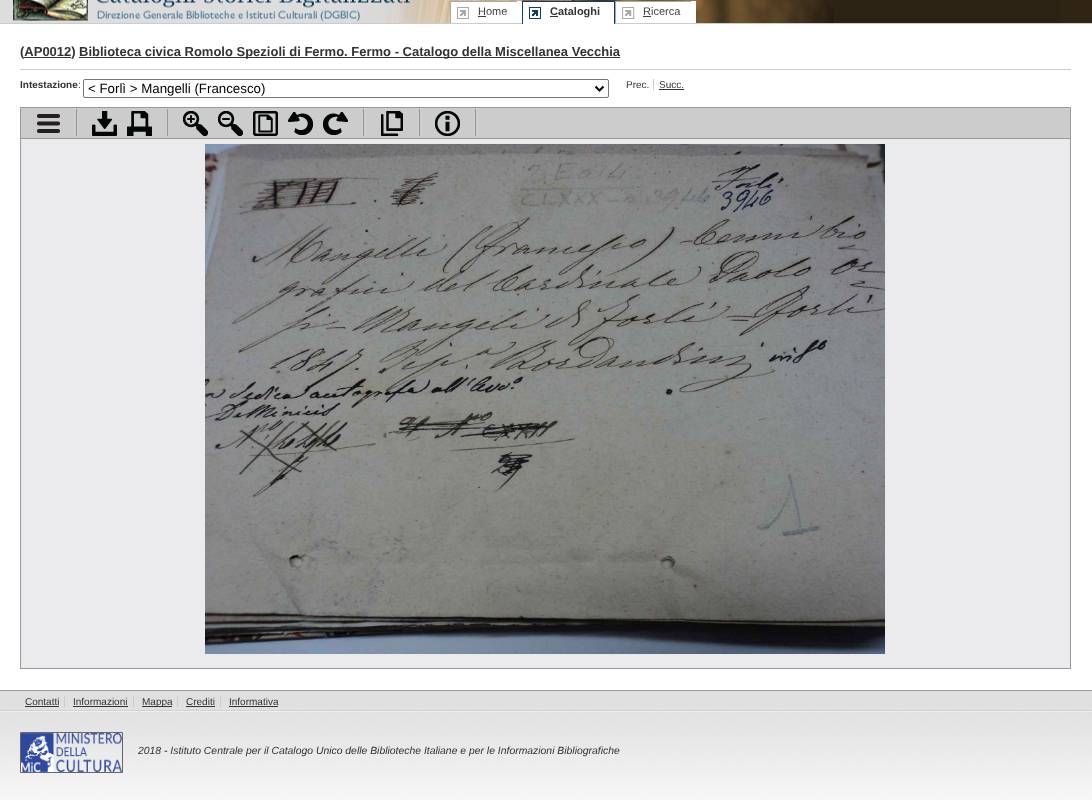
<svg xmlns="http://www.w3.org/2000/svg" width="1092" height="800">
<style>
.a{font:11px Liberation Sans;fill:#3f3f3f}
.b{font:bold 11px Liberation Sans;fill:#333}
.c{font:bold 13px Liberation Sans;fill:#333}
.d{font:bold 10px Liberation Sans;fill:#333}
.e{font:10px Liberation Sans;fill:#333}
.f{font:13.3px Liberation Sans;fill:#000}
.g{font:italic 10.4px Liberation Sans;fill:#333}
</style>
<rect width="100%" height="100%" fill="#fff"/>
<path fill="#ccc" d="M0 23h1092v1H0z"/>
<path fill="#302515" d="M1060 0h32v23H1060z"/>
<image href="1.png" x="0" y="0" width="1060" height="23"/>
<image href="2.png" x="450" y="1" width="67" height="22"/>
<path fill="#fff" d="M517 1h5v22H517z"/>
<path fill="#3f3f3f" d="M478 16h8v1H478z"/>
<image href="3.png" x="522" y="1" width="93" height="23"/>
<path fill="#0f3f65" d="M614 2h1v22H614z"/>
<path fill="#333" d="M550 16h8v1H550z"/>
<image href="4.png" x="615" y="1" width="76" height="22"/>
<path fill="#fff" d="M691 1h5v22H691z"/>
<path fill="#3f3f3f" d="M643 16h8v1H643z"/>
<path fill="#333" d="M79 57h541v1H79z"/>
<path fill="#333" d="M24 57h47v1H24z"/>
<path fill="#ccc" d="M20 69h1051v1H20z"/>
<rect fill="none" stroke="#767676" x="83.5" y="79.5" width="525" height="18" rx="1.5"/>
<path fill="none" stroke="#000" stroke-width="2" d="M595.5 86.5l4 4l4-4"/>
<path fill="#ccc" d="M653 79h1v11H653z"/>
<path fill="#333" d="M659 89h25v1H659z"/>
<path fill="#ccc" stroke="#999" d="M20.5 107.5h1050v31H20.5z"/>
<path fill="#999" d="M76 109h1v27H76z"/>
<image href="5.png" x="37" y="114" width="23" height="19"/>
<path fill="#999" d="M167 109h1v27H167z"/>
<image href="6.png" x="92" y="111" width="25" height="25"/>
<image href="7.png" x="127" y="111" width="25" height="25"/>
<path fill="#999" d="M363 109h1v27H363z"/>
<image href="8.png" x="183" y="111" width="25" height="25"/>
<image href="9.png" x="218" y="111" width="25" height="25"/>
<image href="10.png" x="253" y="111" width="25" height="25"/>
<image href="11.png" x="288" y="112" width="25" height="23"/>
<image href="12.png" x="323" y="112" width="25" height="23"/>
<path fill="#999" d="M419 109h1v27H419z"/>
<image href="13.png" x="381" y="111" width="22" height="25"/>
<path fill="#999" d="M475 109h1v27H475z"/>
<image href="14.png" x="435" y="111" width="25" height="25"/>
<path fill="#ebeaec" d="M21 139h1049v529H21z"/>
<path fill="#999" d="M1070 139h1v530H1070z"/>
<path fill="#999" d="M20 668h1051v1H20z"/>
<path fill="#999" d="M20 139h1v530H20z"/>
<image href="15.png" x="205" y="144" width="680" height="510"/>
<image href="16.png" x="0" y="691" width="1092" height="109"/>
<path fill="#999" d="M0 690h1092v1H0z"/>
<image href="17.png" x="0" y="710" width="1092" height="2"/>
<path fill="#ccc" d="M64 696h1v11H64z"/>
<path fill="#333" d="M25 706h34v1H25z"/>
<path fill="#ccc" d="M133 696h1v11H133z"/>
<path fill="#333" d="M73 706h55v1H73z"/>
<path fill="#ccc" d="M177 696h1v11H177z"/>
<path fill="#333" d="M142 706h30v1H142z"/>
<path fill="#ccc" d="M220 696h1v11H220z"/>
<path fill="#333" d="M186 706h29v1H186z"/>
<path fill="#333" d="M229 706h49v1H229z"/>
<path fill="none" stroke="#666" d="M20.5 732.5h102v40H20.5z"/>
<image href="18.png" x="21" y="733" width="101" height="39"/>
<text class="a" x="478" y="15">Home</text>
<text class="b" x="550" y="15">Cataloghi</text>
<text class="a" x="643" y="15">Ricerca</text>
<text class="c" x="20" y="56">(AP0012)</text>
<text class="c" x="79" y="56">Biblioteca civica Romolo Spezioli di Fermo. Fermo - Catalogo della Miscellanea Vecchia</text>
<text class="d" x="20" y="88">Intestazione</text>
<text class="e" x="78" y="88">:</text>
<text class="f" x="88" y="93">&lt; Forlì &gt; Mangelli (Francesco)</text>
<text class="e" x="626" y="88">Prec.</text>
<text class="e" x="659" y="88">Succ.</text>
<text class="e" x="25" y="705">Contatti</text>
<text class="e" x="73" y="705">Informazioni</text>
<text class="e" x="142" y="705">Mappa</text>
<text class="e" x="186" y="705">Crediti</text>
<text class="e" x="229" y="705">Informativa</text>
<text class="g" x="138" y="754">2018 - Istituto Centrale per il Catalogo Unico delle Biblioteche Italiane e per le Informazioni Bibliografiche</text>
</svg>
